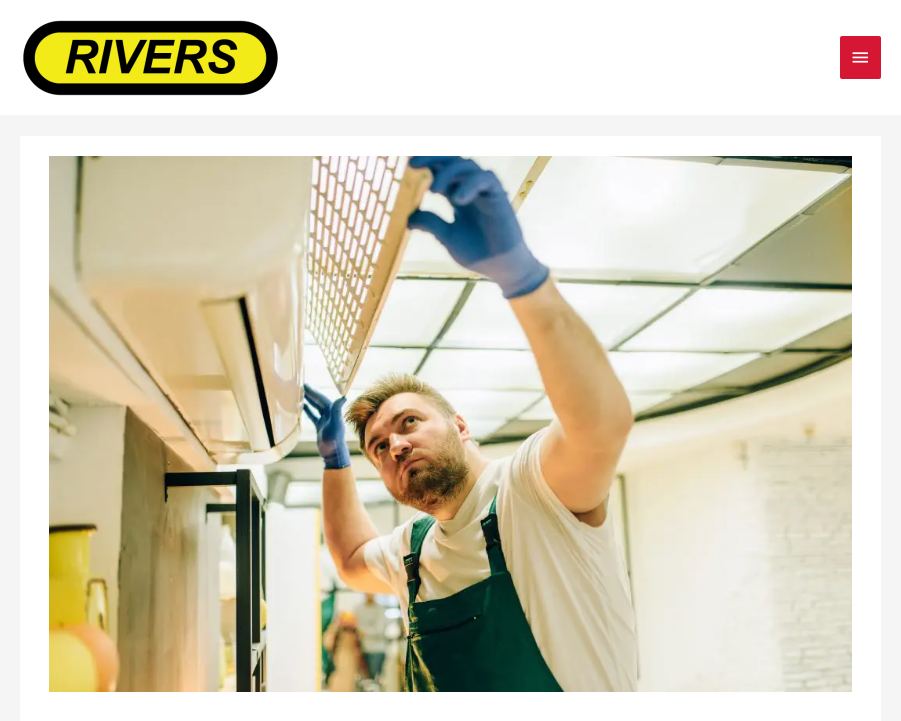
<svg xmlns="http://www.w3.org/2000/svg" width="901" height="721">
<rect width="100%" height="100%" fill="#f5f5f5"/>
<path fill="#fff" d="M0 0h901v115H0z"/>
<image href="1.png" x="23" y="20" width="255" height="76"/>
<rect fill="#d51733" x="840" y="36" width="41" height="43" rx="2"/>
<image href="2.png" x="852" y="52" width="16" height="11"/>
<path fill="#fff" d="M20 136h861v585H20z"/>
<image href="3.png" x="49" y="156" width="803" height="536"/>
</svg>
